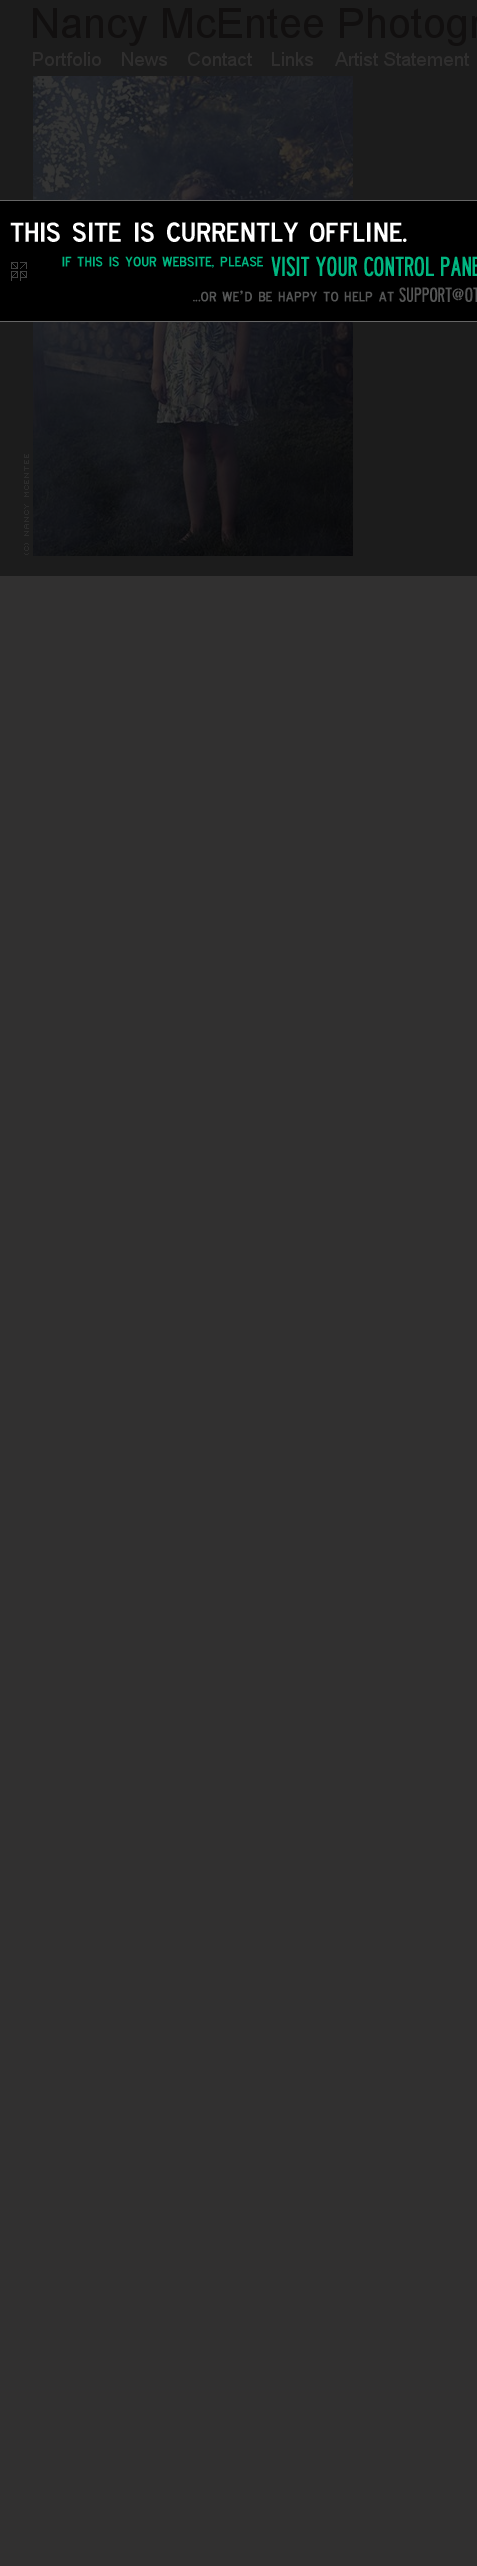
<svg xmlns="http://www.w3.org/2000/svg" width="477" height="2566">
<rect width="100%" height="100%" fill="#313030"/>
<path fill="#1c1c1c" d="M0 0h477v576H0z"/>
<image href="1.png" x="33" y="8" width="444" height="38"/>
<image href="2.png" x="33" y="52" width="68" height="14"/>
<image href="3.png" x="122" y="52" width="45" height="14"/>
<image href="4.png" x="188" y="52" width="64" height="14"/>
<image href="5.png" x="272" y="52" width="41" height="14"/>
<image href="6.png" x="335" y="52" width="134" height="14"/>
<image href="7.png" x="24" y="454" width="5" height="101"/>
<image href="8.png" x="33" y="76" width="320" height="480"/>
<path fill="#000" stroke="#666" d="M-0.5 200.5h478v121H-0.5z"/>
<image href="9.png" x="10" y="222" width="467" height="80"/>
</svg>
